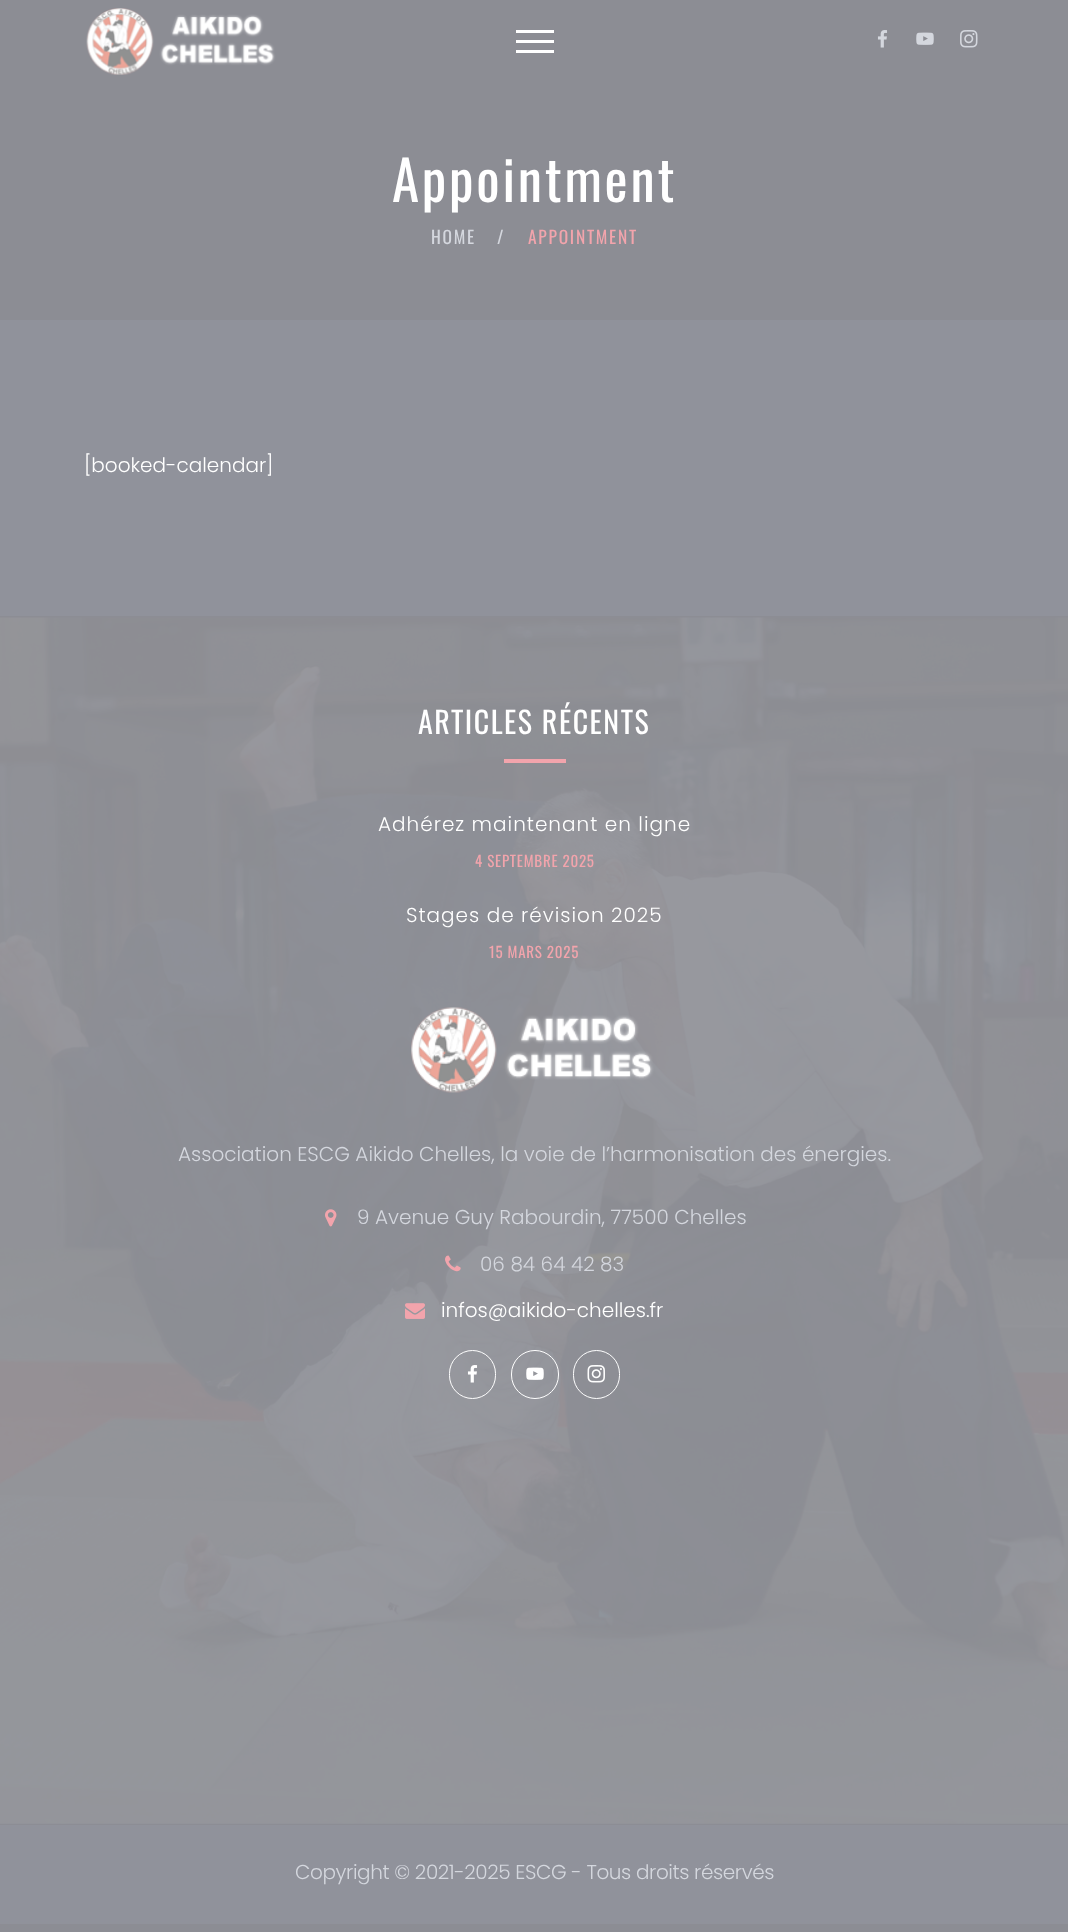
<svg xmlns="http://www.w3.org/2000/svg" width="1068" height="1932">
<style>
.a{font:55px Oswald;letter-spacing:2.75px;fill:#fff}
.b{font:17.5px Oswald;letter-spacing:1.75px;fill:#d4d7de}
.c{font:17.5px Oswald;letter-spacing:1.75px;fill:#f2a4ac}
.d{font:300 20px Poppins;fill:#fff}
.e{font:30px Oswald;letter-spacing:1.5px;fill:#fff}
.f{font:300 20px Poppins;letter-spacing:1px;fill:#fff}
.g{font:15px Oswald;letter-spacing:0.75px;fill:#f2a4ac}
.h{font:300 20px Poppins;fill:#d4d7de}
.i{font:300 20px Poppins;letter-spacing:-0.4px;fill:#d4d7de}
</style>
<rect width="100%" height="100%" fill="#8c8d94"/>
<image href="1.png" x="86" y="8" width="190" height="67"/>
<path fill="#fff" d="M516 40h38v3H516z"/>
<path fill="#fff" d="M516 30h38v3H516z"/>
<path fill="#fff" d="M516 50h38v3H516z"/>
<image href="2.png" x="877" y="30" width="11" height="18"/>
<image href="3.png" x="916" y="32" width="18" height="13"/>
<image href="4.png" x="960" y="30" width="18" height="18"/>
<path fill="#90929b" d="M0 320h1068v296H0z"/>
<image href="5.png" x="0" y="617" width="1068" height="1207"/>
<path fill="#f2a4ac" d="M504 759h62v4H504z"/>
<image href="6.png" x="411" y="1007" width="243" height="86"/>
<image href="7.png" x="325" y="1209" width="12" height="18"/>
<image href="8.png" x="445" y="1255" width="16" height="17"/>
<image href="9.png" x="405" y="1303" width="20" height="16"/>
<rect fill="none" stroke="#fff" x="449.5" y="1350.5" width="46" height="48" rx="23"/>
<image href="10.png" x="467" y="1365" width="11" height="18"/>
<rect fill="none" stroke="#fff" x="511.5" y="1350.5" width="47" height="48" rx="23.5"/>
<image href="11.png" x="526" y="1367" width="18" height="13"/>
<rect fill="none" stroke="#fff" x="573.5" y="1350.5" width="46" height="48" rx="23"/>
<image href="12.png" x="587" y="1365" width="18" height="18"/>
<path fill="#90929b" d="M0 1825h1068v99H0z"/>
<text class="a" x="392" y="202">Appointment</text>
<text class="b" x="431" y="244">HOME</text>
<text class="b" x="497" y="244">/</text>
<text class="c" x="528" y="244">APPOINTMENT</text>
<text class="d" x="84" y="472">[booked-calendar]</text>
<text class="e" x="418" y="734">ARTICLES RÉCENTS</text>
<text class="f" x="378" y="831">Adhérez maintenant en ligne</text>
<text class="g" x="475" y="867">4 SEPTEMBRE 2025</text>
<text class="f" x="406" y="922">Stages de révision 2025</text>
<text class="g" x="489" y="958">15 MARS 2025</text>
<text class="h" x="178" y="1161">Association ESCG Aikido Chelles, la voie de l’harmonisation des énergies.</text>
<text class="h" x="357" y="1224">9 Avenue Guy Rabourdin, 77500 Chelles</text>
<text class="h" x="480" y="1271">06 84 64 42 83</text>
<text class="d" x="441" y="1317">infos@aikido-chelles.fr</text>
<text class="i" x="295" y="1879">Copyright © 2021-2025 ESCG - Tous droits réservés</text>
</svg>
